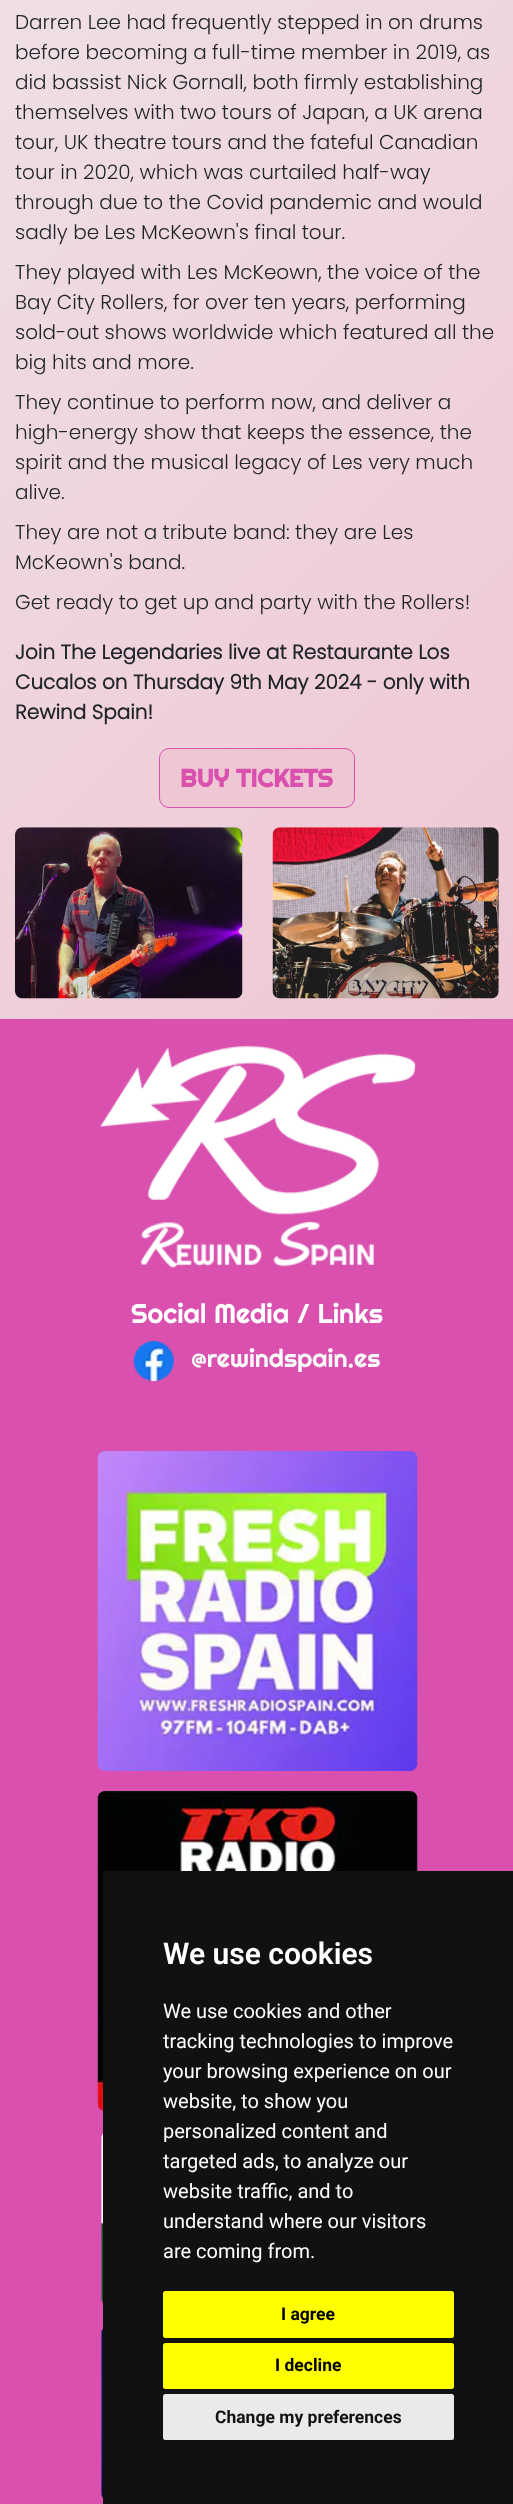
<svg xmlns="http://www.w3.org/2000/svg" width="513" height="2504">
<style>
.a{font:300 20px Poppins;fill:#212529}
.b{font:bold 20px Poppins;fill:#212529}
.c{font:bold 25px Righteous;fill:#d950ae}
.d{font:27px Righteous;fill:#fff}
.e{font:25px Righteous;fill:#f8f9fa}
.f{font:600 30px Roboto;fill:#fff}
.g{font:20px Roboto;fill:#fff}
.h{font:bold 17.5px Roboto;fill:#000}
.i{font:bold 17.5px Roboto;fill:#111}
</style>
<defs>
<linearGradient id="g1" gradientUnits="userSpaceOnUse" x1="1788" y1="1616" x2="-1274" y2="-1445"><stop offset="0" stop-color="#aae847"/><stop offset="0.3" stop-color="#efc6d4"/><stop offset="0.7" stop-color="#eeedee"/><stop offset="1" stop-color="#d950ae"/></linearGradient>
</defs>
<rect width="100%" height="100%" fill="#fff"/>
<path fill="url(#g1)" d="M0 0h513v1019H0z"/>
<rect fill="#efc6d4" stroke="#d950ae" x="159.5" y="748.5" width="195" height="59" rx="9.5"/>
<image href="1.png" x="15" y="827" width="228" height="172"/>
<image href="2.png" x="272" y="827" width="227" height="172"/>
<path fill="#d950ae" d="M0 1019h513v1485H0z"/>
<image href="3.png" x="100" y="1045" width="316" height="223"/>
<image href="4.png" x="133" y="1341" width="41" height="40"/>
<image href="5.png" x="97" y="1451" width="321" height="320"/>
<image href="6.png" x="97" y="1791" width="321" height="320"/>
<image href="7.png" x="101" y="2133" width="2" height="170"/>
<image href="8.png" x="101" y="2328" width="2" height="170"/>
<path fill="#111" d="M103 1871h410v633H103z"/>
<rect fill="#ff0" x="163" y="2291" width="291" height="47" rx="2.5"/>
<rect fill="#ff0" x="163" y="2343" width="291" height="46" rx="2.5"/>
<rect fill="#eaeaea" x="163" y="2394" width="291" height="46" rx="2.5"/>
<text class="a" x="15" y="29">Darren Lee had frequently stepped in on drums</text>
<text class="a" x="15" y="59">before becoming a full-time member in 2019, as</text>
<text class="a" x="15" y="89">did bassist Nick Gornall, both firmly establishing</text>
<text class="a" x="15" y="119">themselves with two tours of Japan, a UK arena</text>
<text class="a" x="15" y="149">tour, UK theatre tours and the fateful Canadian</text>
<text class="a" x="15" y="179">tour in 2020, which was curtailed half-way</text>
<text class="a" x="15" y="209">through due to the Covid pandemic and would</text>
<text class="a" x="15" y="239">sadly be Les McKeown's final tour.</text>
<text class="a" x="15" y="279">They played with Les McKeown, the voice of the</text>
<text class="a" x="15" y="309">Bay City Rollers, for over ten years, performing</text>
<text class="a" x="15" y="339">sold-out shows worldwide which featured all the</text>
<text class="a" x="15" y="369">big hits and more.</text>
<text class="a" x="15" y="409">They continue to perform now, and deliver a</text>
<text class="a" x="15" y="439">high-energy show that keeps the essence, the</text>
<text class="a" x="15" y="469">spirit and the musical legacy of Les very much</text>
<text class="a" x="15" y="499">alive.</text>
<text class="a" x="15" y="539">They are not a tribute band: they are Les</text>
<text class="a" x="15" y="569">McKeown's band.</text>
<text class="a" x="15" y="609">Get ready to get up and party with the Rollers!</text>
<text class="b" x="15" y="659">Join The Legendaries live at Restaurante Los</text>
<text class="b" x="15" y="689">Cucalos on Thursday 9th May 2024 - only with</text>
<text class="b" x="15" y="719">Rewind Spain!</text>
<text class="c" x="180" y="787">BUY TICKETS</text>
<text class="d" x="131" y="1323">Social Media / Links</text>
<text class="e" x="191" y="1367">@rewindspain.es</text>
<text class="f" x="163" y="1964">We use cookies</text>
<text class="g" x="163" y="2018">We use cookies and other</text>
<text class="g" x="163" y="2048">tracking technologies to improve</text>
<text class="g" x="163" y="2078">your browsing experience on our</text>
<text class="g" x="163" y="2108">website, to show you</text>
<text class="g" x="163" y="2138">personalized content and</text>
<text class="g" x="163" y="2168">targeted ads, to analyze our</text>
<text class="g" x="163" y="2198">website traffic, and to</text>
<text class="g" x="163" y="2228">understand where our visitors</text>
<text class="g" x="163" y="2258">are coming from.</text>
<text class="h" x="281" y="2320">I agree</text>
<text class="h" x="275" y="2371">I decline</text>
<text class="i" x="215" y="2423">Change my preferences</text>
</svg>
